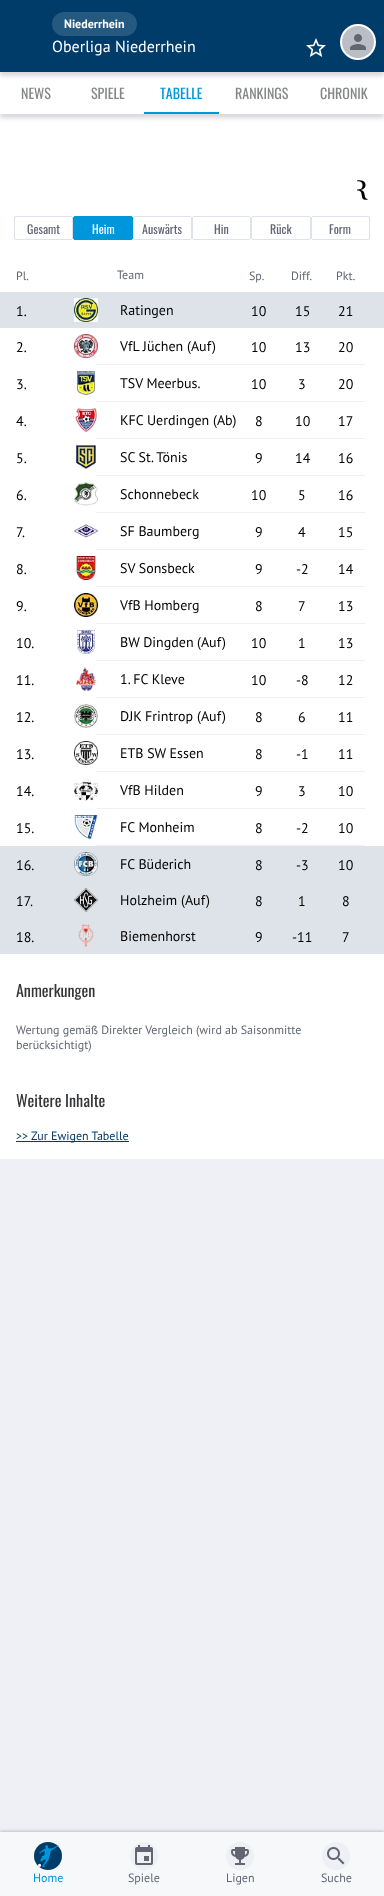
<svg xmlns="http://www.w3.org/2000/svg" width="384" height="1896">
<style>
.a{font:bold 12px PT Sans;fill:#fff}
.b{font:16px PT Sans;fill:#fff}
.c{font:14px Oswald;fill:#858686}
.d{font:14px Oswald;fill:#0096db}
.e{font:12px Oswald;fill:#616672}
.f{font:12px Oswald;fill:#fff}
.g{font:12px PT Sans;fill:#616672}
.h{font:14px PT Sans;fill:#000}
.i{font:16px Oswald;fill:#343536}
.j{font:12px PT Sans;fill:#003c69}
.k{font:12px PT Sans;fill:#0096db}
</style>
<rect width="100%" height="100%" fill="#eef0f5"/>
<path fill="#fff" d="M0 114h384v1045H0z"/>
<path fill="#bcbec699" filter="blur(2px)" d="M0 76h384v42H0z"/>
<path fill="#fff" d="M0 72h384v42H0z"/>
<path fill="#bcbec699" filter="blur(2px)" d="M0 4h384v72H0z"/>
<path fill="#003c69" d="M0 0h384v72H0z"/>
<rect fill="#265980" x="52" y="12" width="85" height="24" rx="12"/>
<image href="1.png" x="306" y="38" width="20" height="19"/>
<circle fill="#bcbec6" stroke="#fff" stroke-width="2" cx="358" cy="42" r="17"/>
<image href="2.png" x="350" y="34" width="16" height="16"/>
<path fill="#0096db" d="M144 112h75v2H144z"/>
<image href="3.png" x="357" y="180" width="11" height="20"/>
<rect fill="none" stroke="#dee2e9" x="14.5" y="216.5" width="58" height="23" rx="1.5"/>
<rect fill="#0096db" stroke="#0096db" x="73.5" y="216.5" width="59" height="23" rx="1.5"/>
<rect fill="none" stroke="#dee2e9" x="133.5" y="216.5" width="58" height="23" rx="1.5"/>
<rect fill="none" stroke="#dee2e9" x="192.5" y="216.5" width="58" height="23" rx="1.5"/>
<rect fill="none" stroke="#dee2e9" x="251.5" y="216.5" width="59" height="23" rx="1.5"/>
<rect fill="none" stroke="#dee2e9" x="311.5" y="216.5" width="58" height="23" rx="1.5"/>
<path fill="#dee2e9" d="M0 292h384v36H0z"/>
<image href="4.png" x="74" y="298" width="24" height="24"/>
<image href="5.png" x="74" y="334" width="24" height="24"/>
<path fill="#eef0f5" d="M96 364h269v1H96z"/>
<image href="6.png" x="77" y="371" width="18" height="24"/>
<path fill="#eef0f5" d="M96 401h269v1H96z"/>
<image href="7.png" x="75" y="408" width="22" height="24"/>
<path fill="#eef0f5" d="M96 438h269v1H96z"/>
<image href="8.png" x="76" y="445" width="20" height="24"/>
<path fill="#eef0f5" d="M96 475h269v1H96z"/>
<image href="9.png" x="74" y="482" width="24" height="24"/>
<path fill="#eef0f5" d="M96 512h269v1H96z"/>
<image href="10.png" x="74" y="524" width="24" height="14"/>
<path fill="#eef0f5" d="M96 549h269v1H96z"/>
<image href="11.png" x="76" y="556" width="20" height="24"/>
<path fill="#eef0f5" d="M96 586h269v1H96z"/>
<image href="12.png" x="74" y="593" width="24" height="24"/>
<path fill="#eef0f5" d="M96 623h269v1H96z"/>
<image href="13.png" x="77" y="630" width="18" height="24"/>
<path fill="#eef0f5" d="M96 660h269v1H96z"/>
<image href="14.png" x="75" y="667" width="22" height="24"/>
<path fill="#eef0f5" d="M96 697h269v1H96z"/>
<image href="15.png" x="74" y="704" width="24" height="24"/>
<path fill="#eef0f5" d="M96 734h269v1H96z"/>
<image href="16.png" x="74" y="741" width="24" height="24"/>
<path fill="#eef0f5" d="M96 771h269v1H96z"/>
<image href="17.png" x="74" y="779" width="24" height="22"/>
<path fill="#eef0f5" d="M96 808h269v1H96z"/>
<image href="18.png" x="74" y="815" width="24" height="24"/>
<path fill="#eef0f5" d="M96 845h269v1H96z"/>
<path fill="#dee2e9" d="M0 846h384v108H0z"/>
<image href="19.png" x="74" y="852" width="24" height="24"/>
<image href="20.png" x="74" y="888" width="24" height="24"/>
<image href="21.png" x="78" y="924" width="16" height="24"/>
<path fill="#003c69" d="M16 1141h113v1H16z"/>
<path fill="#bcbec6" filter="blur(1.5px)" d="M0 1831h384v64H0z"/>
<path fill="#f7f8fa" d="M0 1832h384v64H0z"/>
<circle fill="#003c69" cx="48" cy="1856" r="14"/>
<image href="22.png" x="38" y="1845" width="21" height="22"/>
<circle fill="#eef0f5" cx="144" cy="1856" r="14"/>
<image href="23.png" x="135" y="1845" width="18" height="20"/>
<circle fill="#eef0f5" cx="240" cy="1856" r="14"/>
<image href="24.png" x="231" y="1847" width="18" height="18"/>
<circle fill="#eef0f5" cx="336" cy="1856" r="14"/>
<image href="25.png" x="327" y="1847" width="18" height="18"/>
<text class="a" x="64" y="28">Niederrhein</text>
<text class="b" x="52" y="52">Oberliga Niederrhein</text>
<text class="c" x="21" y="99">NEWS</text>
<text class="c" x="91" y="99">SPIELE</text>
<text class="d" x="160" y="99">TABELLE</text>
<text class="c" x="235" y="99">RANKINGS</text>
<text class="c" x="320" y="99">CHRONIK</text>
<text class="e" x="27" y="234">Gesamt</text>
<text class="f" x="92" y="234">Heim</text>
<text class="e" x="142" y="234">Auswärts</text>
<text class="e" x="214" y="234">Hin</text>
<text class="e" x="270" y="234">Rück</text>
<text class="e" x="329" y="234">Form</text>
<text class="g" x="16" y="280">Pl.</text>
<text class="g" x="117" y="279">Team</text>
<text class="g" x="249" y="280">Sp.</text>
<text class="g" x="291" y="280">Diff.</text>
<text class="g" x="336" y="280">Pkt.</text>
<text class="h" x="16" y="316">1.</text>
<text class="h" x="120" y="315">Ratingen</text>
<text class="h" x="251" y="316">10</text>
<text class="h" x="295" y="316">15</text>
<text class="h" x="338" y="316">21</text>
<text class="h" x="16" y="352">2.</text>
<text class="h" x="120" y="351">VfL Jüchen</text>
<text class="h" x="187" y="351">(Auf)</text>
<text class="h" x="251" y="352">10</text>
<text class="h" x="295" y="352">13</text>
<text class="h" x="338" y="352">20</text>
<text class="h" x="16" y="389">3.</text>
<text class="h" x="120" y="388">TSV Meerbus.</text>
<text class="h" x="251" y="389">10</text>
<text class="h" x="298" y="389">3</text>
<text class="h" x="338" y="389">20</text>
<text class="h" x="16" y="426">4.</text>
<text class="h" x="120" y="425">KFC Uerdingen</text>
<text class="h" x="213" y="425">(Ab)</text>
<text class="h" x="255" y="426">8</text>
<text class="h" x="295" y="426">10</text>
<text class="h" x="338" y="426">17</text>
<text class="h" x="16" y="463">5.</text>
<text class="h" x="120" y="462">SC St. Tönis</text>
<text class="h" x="255" y="463">9</text>
<text class="h" x="295" y="463">14</text>
<text class="h" x="338" y="463">16</text>
<text class="h" x="16" y="500">6.</text>
<text class="h" x="120" y="499">Schonnebeck</text>
<text class="h" x="251" y="500">10</text>
<text class="h" x="298" y="500">5</text>
<text class="h" x="338" y="500">16</text>
<text class="h" x="16" y="537">7</text>
<text class="h" x="22" y="537">.</text>
<text class="h" x="120" y="536">SF Baumberg</text>
<text class="h" x="255" y="537">9</text>
<text class="h" x="298" y="537">4</text>
<text class="h" x="338" y="537">15</text>
<text class="h" x="16" y="574">8.</text>
<text class="h" x="120" y="573">SV Sonsbeck</text>
<text class="h" x="255" y="574">9</text>
<text class="h" x="296" y="574">-2</text>
<text class="h" x="338" y="574">14</text>
<text class="h" x="16" y="611">9.</text>
<text class="h" x="120" y="610">VfB Homberg</text>
<text class="h" x="255" y="611">8</text>
<text class="h" x="298" y="611">7</text>
<text class="h" x="338" y="611">13</text>
<text class="h" x="16" y="648">10.</text>
<text class="h" x="120" y="647">BW Dingden</text>
<text class="h" x="197" y="647">(Auf)</text>
<text class="h" x="251" y="648">10</text>
<text class="h" x="298" y="648">1</text>
<text class="h" x="338" y="648">13</text>
<text class="h" x="16" y="685">11.</text>
<text class="h" x="120" y="684">1. FC Kleve</text>
<text class="h" x="251" y="685">10</text>
<text class="h" x="296" y="685">-8</text>
<text class="h" x="338" y="685">12</text>
<text class="h" x="16" y="722">12.</text>
<text class="h" x="120" y="721">DJK Frintrop</text>
<text class="h" x="197" y="721">(Auf)</text>
<text class="h" x="255" y="722">8</text>
<text class="h" x="298" y="722">6</text>
<text class="h" x="338" y="722">11</text>
<text class="h" x="16" y="759">13.</text>
<text class="h" x="120" y="758">ETB SW Essen</text>
<text class="h" x="255" y="759">8</text>
<text class="h" x="296" y="759">-1</text>
<text class="h" x="338" y="759">11</text>
<text class="h" x="16" y="796">14.</text>
<text class="h" x="120" y="795">VfB Hilden</text>
<text class="h" x="255" y="796">9</text>
<text class="h" x="298" y="796">3</text>
<text class="h" x="338" y="796">10</text>
<text class="h" x="16" y="833">15.</text>
<text class="h" x="120" y="832">FC Monheim</text>
<text class="h" x="255" y="833">8</text>
<text class="h" x="296" y="833">-2</text>
<text class="h" x="338" y="833">10</text>
<text class="h" x="16" y="870">16.</text>
<text class="h" x="120" y="869">FC Büderich</text>
<text class="h" x="255" y="870">8</text>
<text class="h" x="296" y="870">-3</text>
<text class="h" x="338" y="870">10</text>
<text class="h" x="16" y="906">17</text>
<text class="h" x="30" y="906">.</text>
<text class="h" x="120" y="905">Holzheim</text>
<text class="h" x="181" y="905">(Auf)</text>
<text class="h" x="255" y="906">8</text>
<text class="h" x="298" y="906">1</text>
<text class="h" x="342" y="906">8</text>
<text class="h" x="16" y="942">18.</text>
<text class="h" x="120" y="941">Biemenhorst</text>
<text class="h" x="255" y="942">9</text>
<text class="h" x="292" y="942">-11</text>
<text class="h" x="342" y="942">7</text>
<text class="i" x="16" y="997">Anmerkungen</text>
<text class="g" x="16" y="1034">Wertung gemäß Direkter Vergleich (wird ab Saisonmitte</text>
<text class="g" x="16" y="1049">berücksichtigt)</text>
<text class="i" x="16" y="1107">Weitere Inhalte</text>
<text class="j" x="16" y="1140">&gt;&gt; Zur Ewigen Tabelle</text>
<text class="k" x="33" y="1882">Home</text>
<text class="g" x="128" y="1882">Spiele</text>
<text class="g" x="226" y="1882">Ligen</text>
<text class="g" x="321" y="1882">Suche</text>
</svg>
